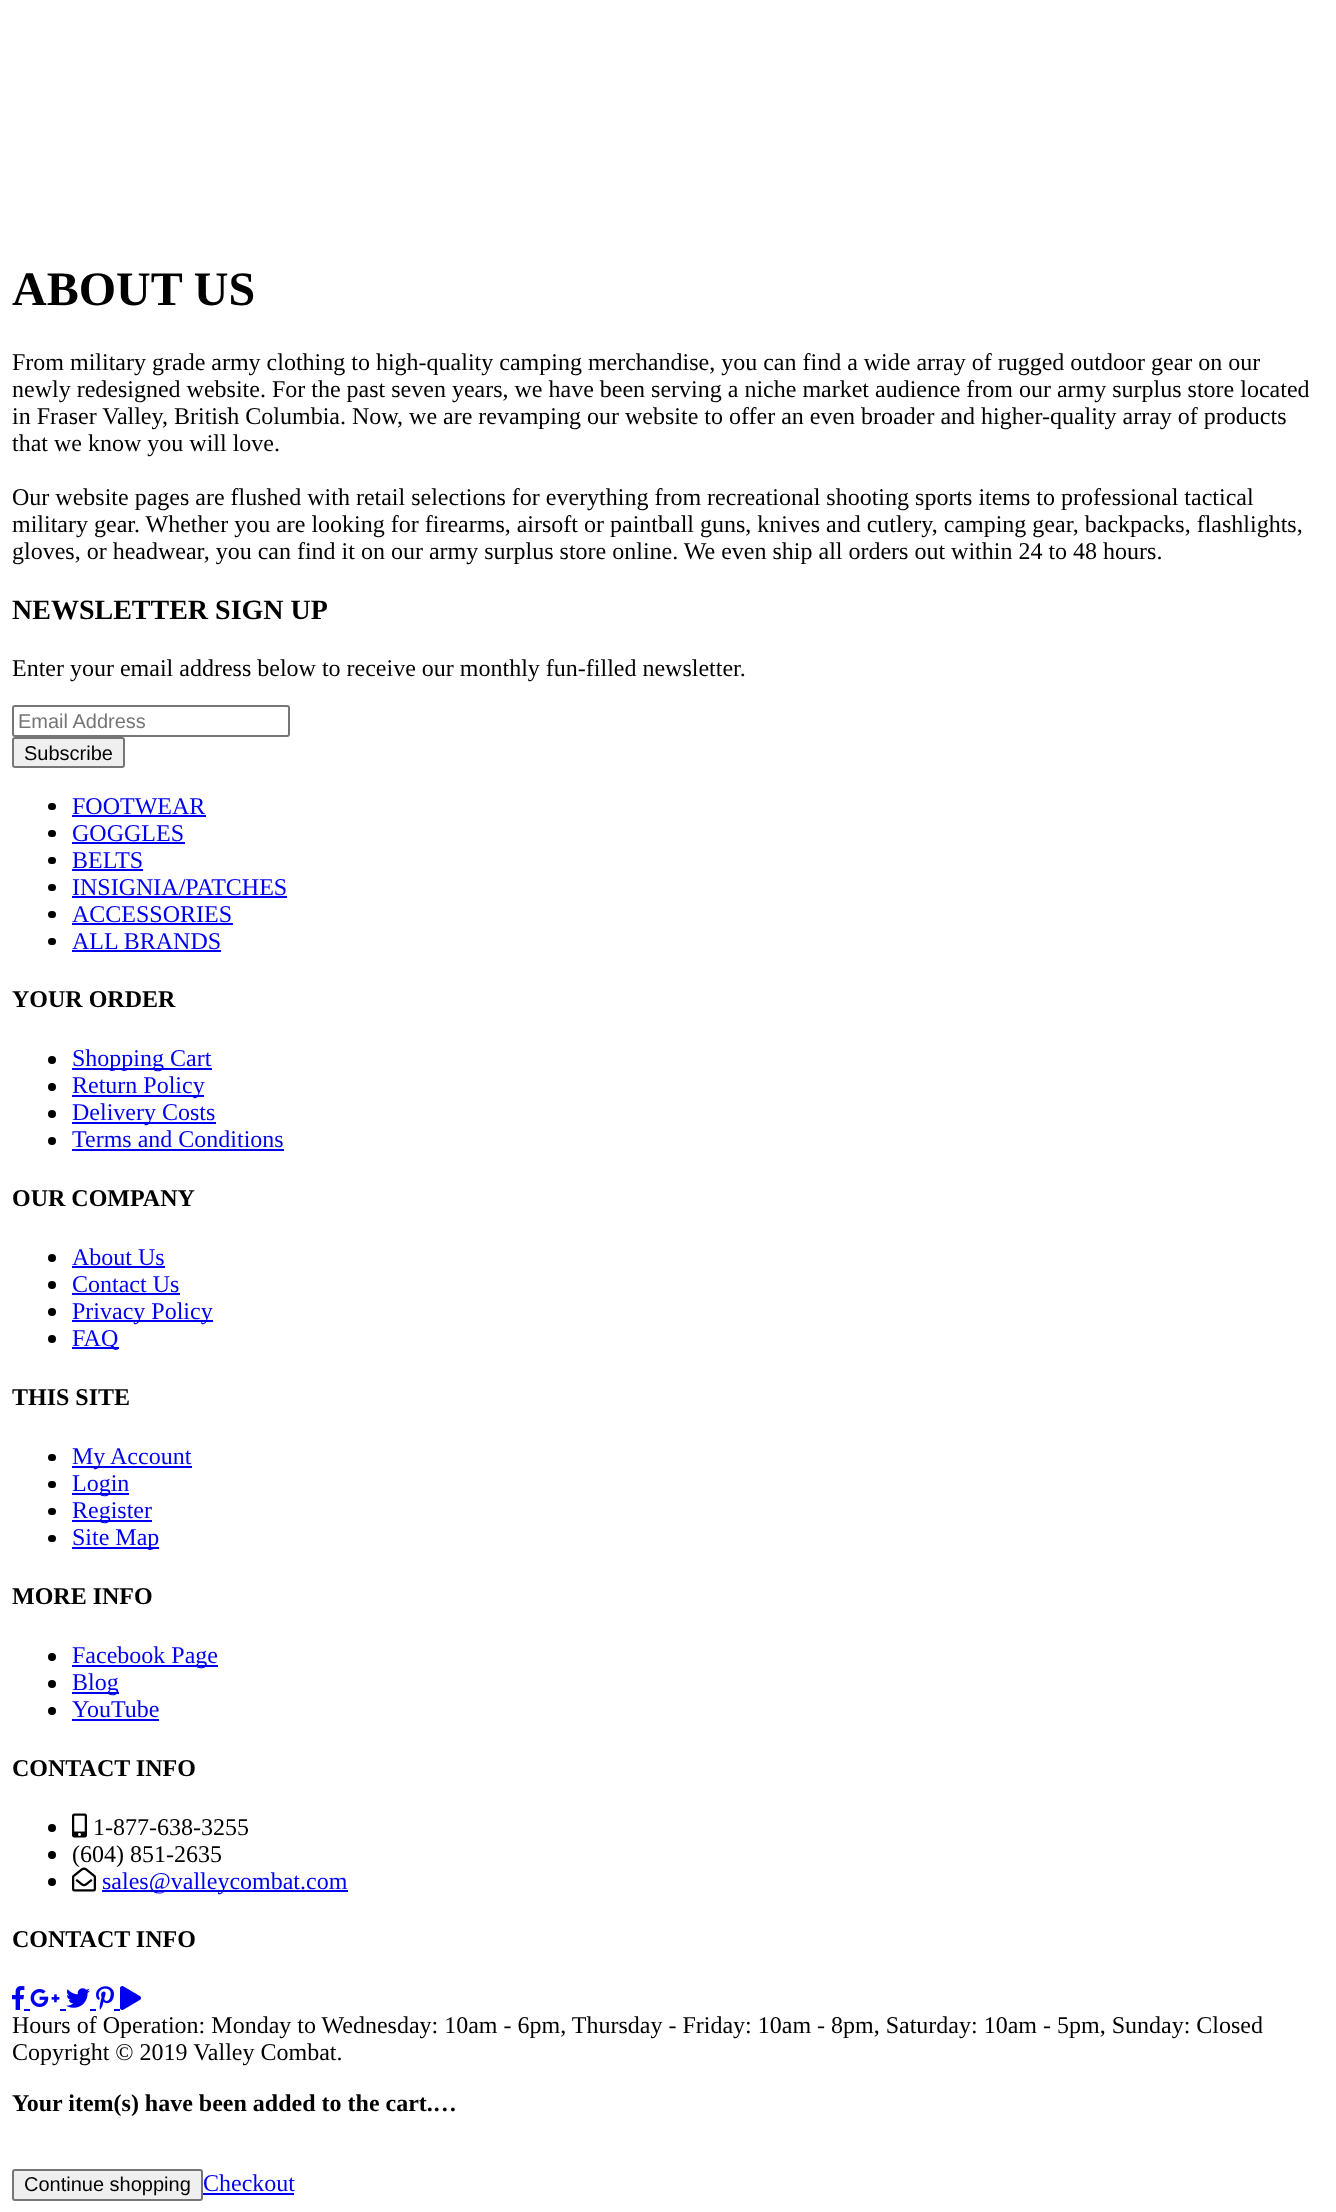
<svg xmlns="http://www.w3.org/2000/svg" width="1336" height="2212">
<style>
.a{font:bold 48px Liberation Serif;fill:#000}
.b{font:24px Liberation Serif;fill:#000}
.c{font:bold 28px Liberation Serif;fill:#000}
.d{font:20px Liberation Sans;fill:#757575}
.e{font:20px Liberation Sans;fill:#000}
.f{font:24px Liberation Serif;fill:#00e}
.g{font:bold 24px Liberation Serif;fill:#000}
</style>
<rect width="100%" height="100%" fill="#fff"/>
<rect fill="none" stroke="#767676" stroke-width="2" x="13" y="706" width="276" height="30" rx="2"/>
<rect fill="#efefef" stroke="#767676" stroke-width="2" x="13" y="738" width="111" height="29" rx="2"/>
<rect fill="#000" x="48" y="803" width="8" height="7" rx="3.5"/>
<path fill="#00e" d="M72 815h134v2H72z"/>
<rect fill="#000" x="48" y="830" width="8" height="7" rx="3.5"/>
<path fill="#00e" d="M72 842h113v2H72z"/>
<rect fill="#000" x="48" y="857" width="8" height="7" rx="3.5"/>
<path fill="#00e" d="M72 869h71v2H72z"/>
<rect fill="#000" x="48" y="884" width="8" height="7" rx="3.5"/>
<path fill="#00e" d="M72 896h215v2H72z"/>
<rect fill="#000" x="48" y="911" width="8" height="7" rx="3.5"/>
<path fill="#00e" d="M72 923h161v2H72z"/>
<rect fill="#000" x="48" y="938" width="8" height="7" rx="3.5"/>
<path fill="#00e" d="M72 950h149v2H72z"/>
<circle fill="#000" cx="52" cy="1060" r="4"/>
<path fill="#00e" d="M72 1068h140v2H72z"/>
<circle fill="#000" cx="52" cy="1087" r="4"/>
<path fill="#00e" d="M72 1095h132v2H72z"/>
<circle fill="#000" cx="52" cy="1114" r="4"/>
<path fill="#00e" d="M72 1122h144v2H72z"/>
<circle fill="#000" cx="52" cy="1141" r="4"/>
<path fill="#00e" d="M72 1149h212v2H72z"/>
<circle fill="#000" cx="52" cy="1258" r="4"/>
<path fill="#00e" d="M72 1266h93v2H72z"/>
<circle fill="#000" cx="52" cy="1285" r="4"/>
<path fill="#00e" d="M72 1293h108v2H72z"/>
<circle fill="#000" cx="52" cy="1312" r="4"/>
<path fill="#00e" d="M72 1320h141v2H72z"/>
<circle fill="#000" cx="52" cy="1339" r="4"/>
<path fill="#00e" d="M72 1347h47v2H72z"/>
<rect fill="#000" x="48" y="1454" width="8" height="7" rx="3.5"/>
<path fill="#00e" d="M72 1466h120v2H72z"/>
<rect fill="#000" x="48" y="1481" width="8" height="7" rx="3.5"/>
<path fill="#00e" d="M72 1493h57v2H72z"/>
<rect fill="#000" x="48" y="1508" width="8" height="7" rx="3.5"/>
<path fill="#00e" d="M72 1520h80v2H72z"/>
<rect fill="#000" x="48" y="1535" width="8" height="7" rx="3.5"/>
<path fill="#00e" d="M72 1547h87v2H72z"/>
<circle fill="#000" cx="52" cy="1657" r="4"/>
<path fill="#00e" d="M72 1665h146v2H72z"/>
<circle fill="#000" cx="52" cy="1684" r="4"/>
<path fill="#00e" d="M72 1692h47v2H72z"/>
<circle fill="#000" cx="52" cy="1711" r="4"/>
<path fill="#00e" d="M72 1719h87v2H72z"/>
<circle fill="#000" cx="52" cy="1828" r="4"/>
<image href="1.png" x="72" y="1813" width="15" height="25"/>
<circle fill="#000" cx="52" cy="1855" r="4"/>
<circle fill="#000" cx="52" cy="1882" r="4"/>
<path fill="#00e" d="M102 1890h246v2H102z"/>
<image href="3.png" x="12" y="1986" width="13" height="24"/>
<image href="4.png" x="30" y="1989" width="30" height="18"/>
<path fill="#00e" d="M24 2009h6v2H24z"/>
<image href="5.png" x="66" y="1988" width="24" height="20"/>
<path fill="#00e" d="M60 2009h6v2H60z"/>
<path fill="#00e" d="M90 2009h6v2H90z"/>
<image href="6.png" x="96" y="1986" width="18" height="24"/>
<path fill="#00e" d="M114 2009h6v2H114z"/>
<image href="7.png" x="120" y="1986" width="21" height="24"/>
<rect fill="#efefef" stroke="#767676" stroke-width="2" x="13" y="2170" width="189" height="30" rx="2"/>
<path fill="#00e" d="M203 2193h91v2H203z"/>
<text class="a" x="12" y="305">ABOUT US</text>
<text class="b" x="12" y="370">From military grade army clothing to high-quality camping merchandise, you can find a wide array of rugged outdoor gear on our</text>
<text class="b" x="12" y="397">newly redesigned website. For the past seven years, we have been serving a niche market audience from our army surplus store located</text>
<text class="b" x="12" y="424">in Fraser Valley, British Columbia. Now, we are revamping our website to offer an even broader and higher-quality array of products</text>
<text class="b" x="12" y="451">that we know you will love.</text>
<text class="b" x="12" y="505">Our website pages are flushed with retail selections for everything from recreational shooting sports items to professional tactical</text>
<text class="b" x="12" y="532">military gear. Whether you are looking for firearms, airsoft or paintball guns, knives and cutlery, camping gear, backpacks, flashlights,</text>
<text class="b" x="12" y="559">gloves, or headwear, you can find it on our army surplus store online. We even ship all orders out within 24 to 48 hours.</text>
<text class="c" x="12" y="619">NEWSLETTER SIGN UP</text>
<text class="b" x="12" y="676">Enter your email address below to receive our monthly fun-filled newsletter.</text>
<text class="d" x="18" y="728">Email Address</text>
<text class="e" x="24" y="760">Subscribe</text>
<text class="f" x="72" y="814">FOOTWEAR</text>
<text class="f" x="72" y="841">GOGGLES</text>
<text class="f" x="72" y="868">BELTS</text>
<text class="f" x="72" y="895">INSIGNIA/PATCHES</text>
<text class="f" x="72" y="922">ACCESSORIES</text>
<text class="f" x="72" y="949">ALL BRANDS</text>
<text class="g" x="12" y="1007">YOUR ORDER</text>
<text class="f" x="72" y="1066">Shopping Cart</text>
<text class="f" x="72" y="1093">Return Policy</text>
<text class="f" x="72" y="1120">Delivery Costs</text>
<text class="f" x="72" y="1147">Terms and Conditions</text>
<text class="g" x="12" y="1206">OUR COMPANY</text>
<text class="f" x="72" y="1265">About Us</text>
<text class="f" x="72" y="1292">Contact Us</text>
<text class="f" x="72" y="1319">Privacy Policy</text>
<text class="f" x="72" y="1346">FAQ</text>
<text class="g" x="12" y="1405">THIS SITE</text>
<text class="f" x="72" y="1464">My Account</text>
<text class="f" x="72" y="1491">Login</text>
<text class="f" x="72" y="1518">Register</text>
<text class="f" x="72" y="1545">Site Map</text>
<text class="g" x="12" y="1604">MORE INFO</text>
<text class="f" x="72" y="1663">Facebook Page</text>
<text class="f" x="72" y="1690">Blog</text>
<text class="f" x="72" y="1717">YouTube</text>
<text class="g" x="12" y="1776">CONTACT INFO</text>
<text class="b" x="93" y="1835">1-877-638-3255</text>
<text class="b" x="72" y="1862">(604) 851-2635</text>
<image href="2.png" x="72" y="1867" width="24" height="25"/>
<text class="f" x="102" y="1889">sales@valleycombat.com</text>
<text class="g" x="12" y="1947">CONTACT INFO</text>
<text class="b" x="12" y="2033">Hours of Operation: Monday to Wednesday: 10am - 6pm, Thursday - Friday: 10am - 8pm, Saturday: 10am - 5pm, Sunday: Closed</text>
<text class="b" x="12" y="2060">Copyright © 2019 Valley Combat.</text>
<text class="g" x="12" y="2111">Your item(s) have been added to the cart.…</text>
<text class="e" x="24" y="2191">Continue shopping</text>
<text class="f" x="203" y="2191">Checkout</text>
</svg>
